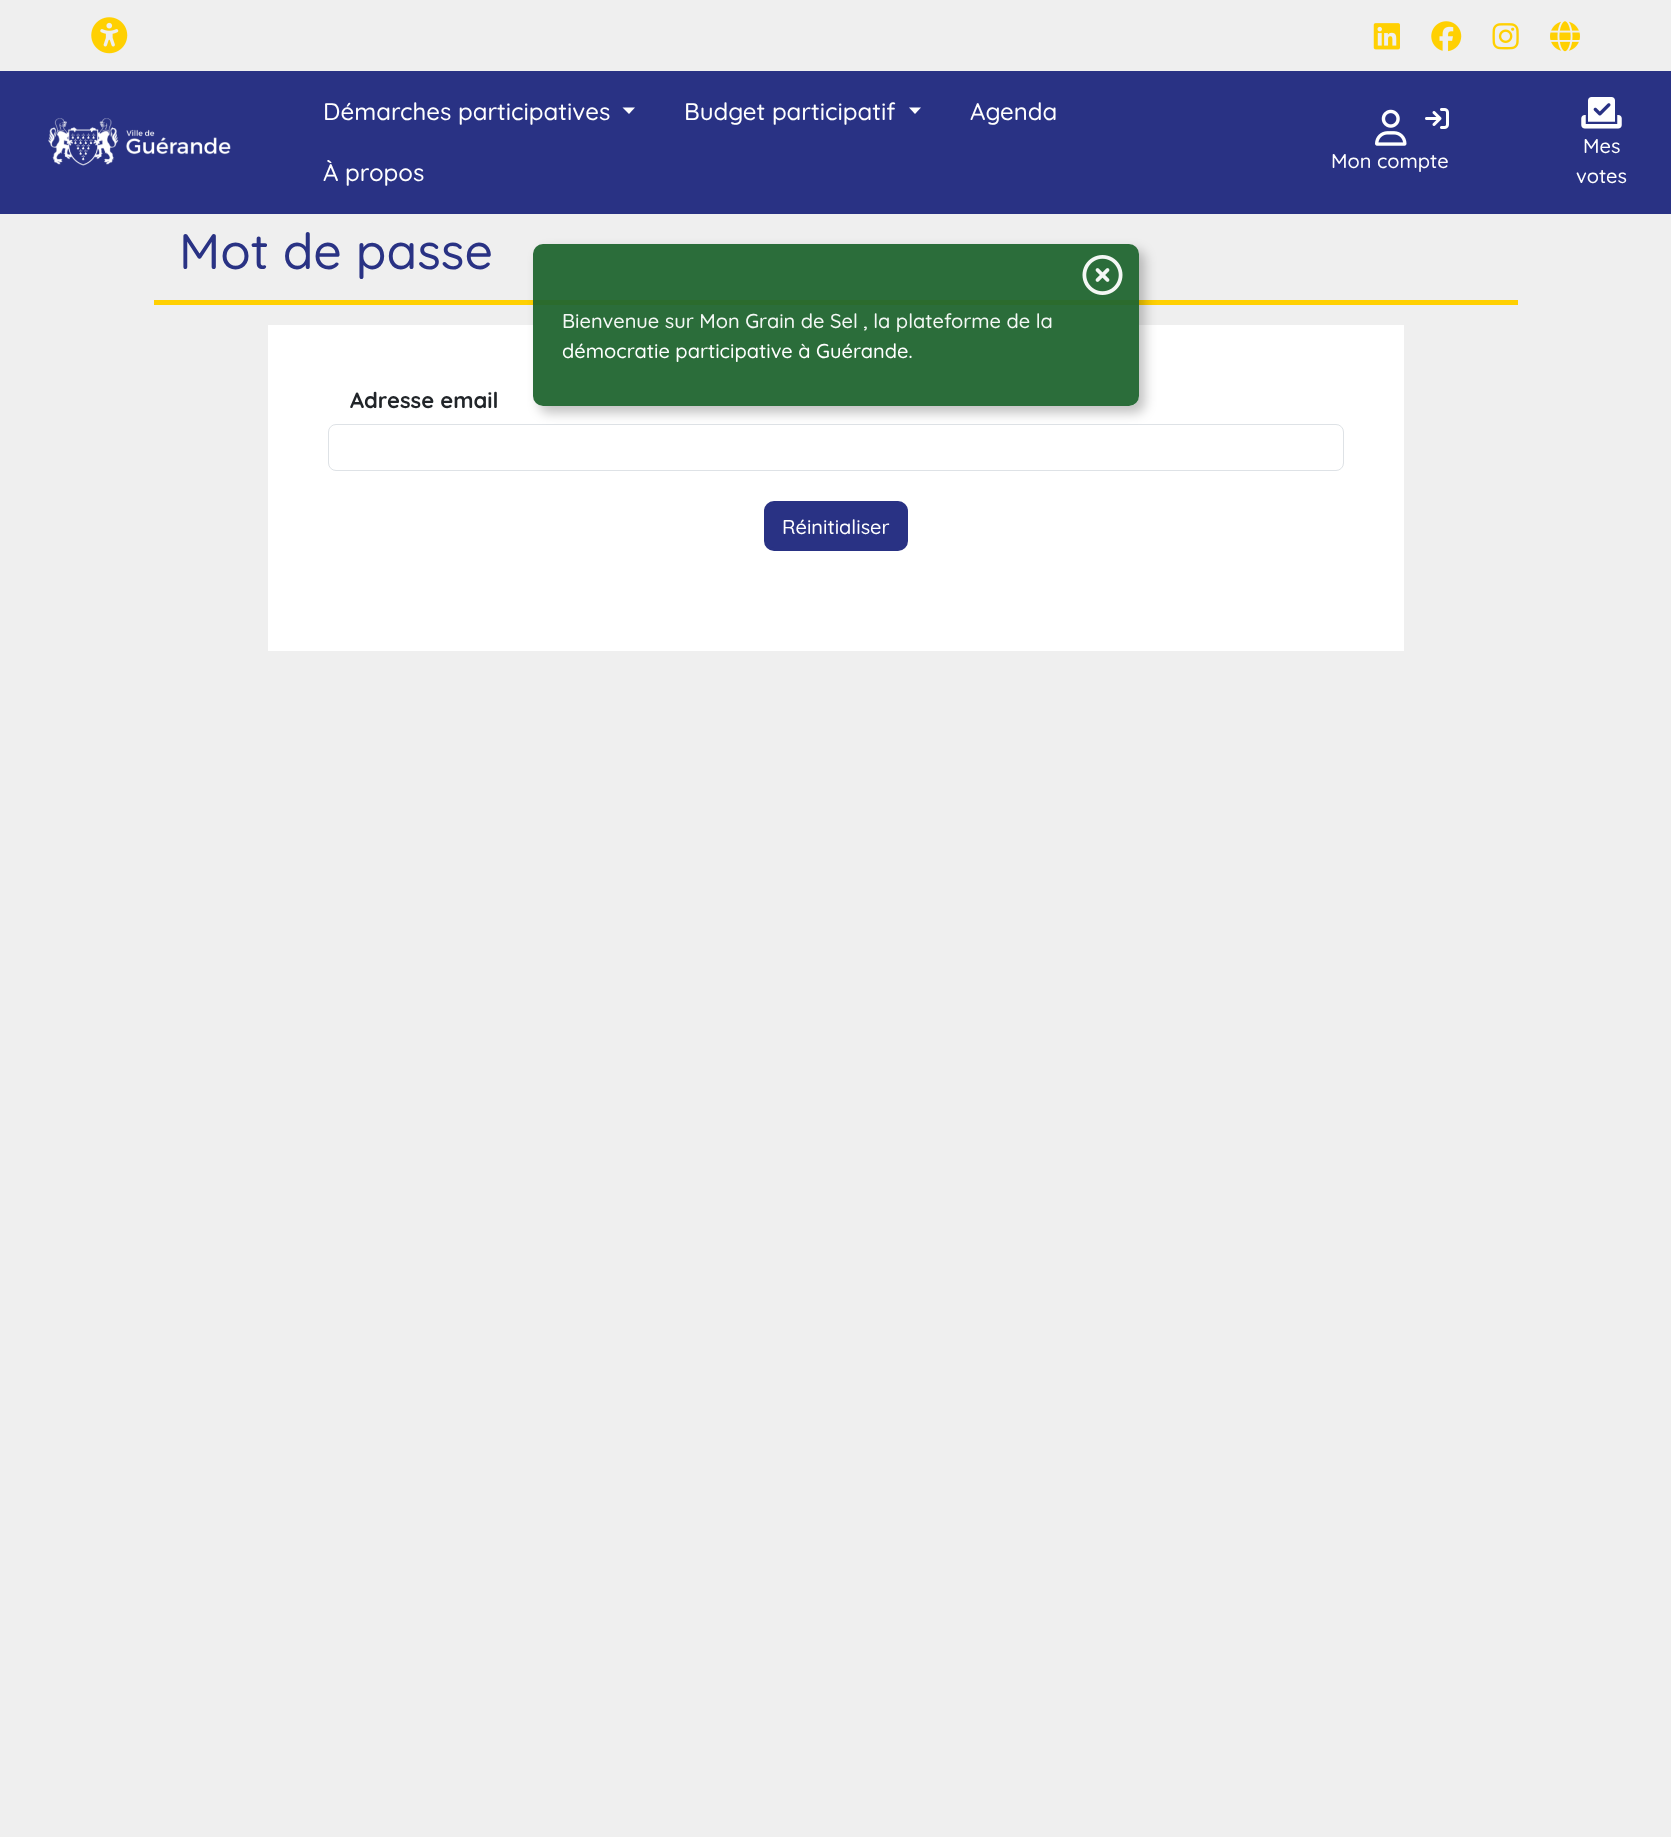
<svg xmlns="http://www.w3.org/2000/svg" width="1671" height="1837">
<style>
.a{font:500 24px Quicksand;fill:#fff}
.b{font:500 20px Quicksand;fill:#fff}
.c{font:500 20px Quicksand;fill:#f4f8f5}
.d{font:500 50px Quicksand;fill:#293284}
.e{font:bold 22px Quicksand;fill:#212529}
</style>
<defs>
<clipPath id="clip1"><path d="M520 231h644v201h-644zm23 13h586c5.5 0 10 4.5 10 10v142c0 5.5-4.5 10-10 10h-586c-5.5 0-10-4.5-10-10v-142c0-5.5 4.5-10 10-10z" clip-rule="evenodd"/></clipPath>
</defs>
<rect width="100%" height="100%" fill="#efefef"/>
<image href="1.png" x="91" y="17" width="37" height="37"/>
<image href="2.png" x="1373" y="23" width="27" height="27"/>
<image href="3.png" x="1431" y="21" width="31" height="31"/>
<image href="4.png" x="1492" y="23" width="27" height="27"/>
<image href="5.png" x="1550" y="21" width="30" height="31"/>
<path fill="#293284" d="M0 71h1671v143H0z"/>
<image href="6.png" x="48" y="118" width="183" height="48"/>
<path fill="#fff" d="M622.5 107.5h12.5l-6 6.5z"/>
<path fill="#fff" d="M909 107.5h12l-6 6.5z"/>
<image href="7.png" x="1425" y="108" width="24" height="21"/>
<image href="8.png" x="1375" y="109" width="32" height="37"/>
<image href="9.png" x="1581" y="97" width="41" height="32"/>
<path fill="#ffd002" d="M154 300h1364v5H154z"/>
<path fill="#fff" d="M268 325h1136v326H268z"/>
<rect fill="none" stroke="#dee2e6" x="328.5" y="424.5" width="1015" height="46" rx="7.5"/>
<g clip-path="url(#clip1)">
<rect fill="#0000003d" filter="blur(6px)" x="539" y="250" width="606" height="163" rx="10"/>
</g>
<rect fill="#20652ff2" x="533" y="244" width="606" height="162" rx="10"/>
<image href="10.png" x="1082" y="255" width="41" height="40"/>
<rect fill="#293284" stroke="#293284" stroke-width="3" x="765.5" y="502.5" width="141" height="47" rx="8.5"/>
<text class="a" x="323" y="120">Démarches participatives</text>
<text class="a" x="684" y="120">Budget participatif</text>
<text class="a" x="970" y="120">Agenda</text>
<text class="a" x="323" y="181">À propos</text>
<text class="b" x="1331" y="168">Mon compte</text>
<text class="b" x="1583" y="153">Mes</text>
<text class="b" x="1576" y="183">votes</text>
<text class="c" x="562" y="328">Bienvenue sur Mon Grain de Sel , la plateforme de la</text>
<text class="b" x="562" y="358">démocratie participative à Guérande.</text>
<text class="d" x="179" y="269">Mot de passe</text>
<text class="e" x="350" y="408">Adresse email</text>
<text class="b" x="782" y="534">Réinitialiser</text>
</svg>
